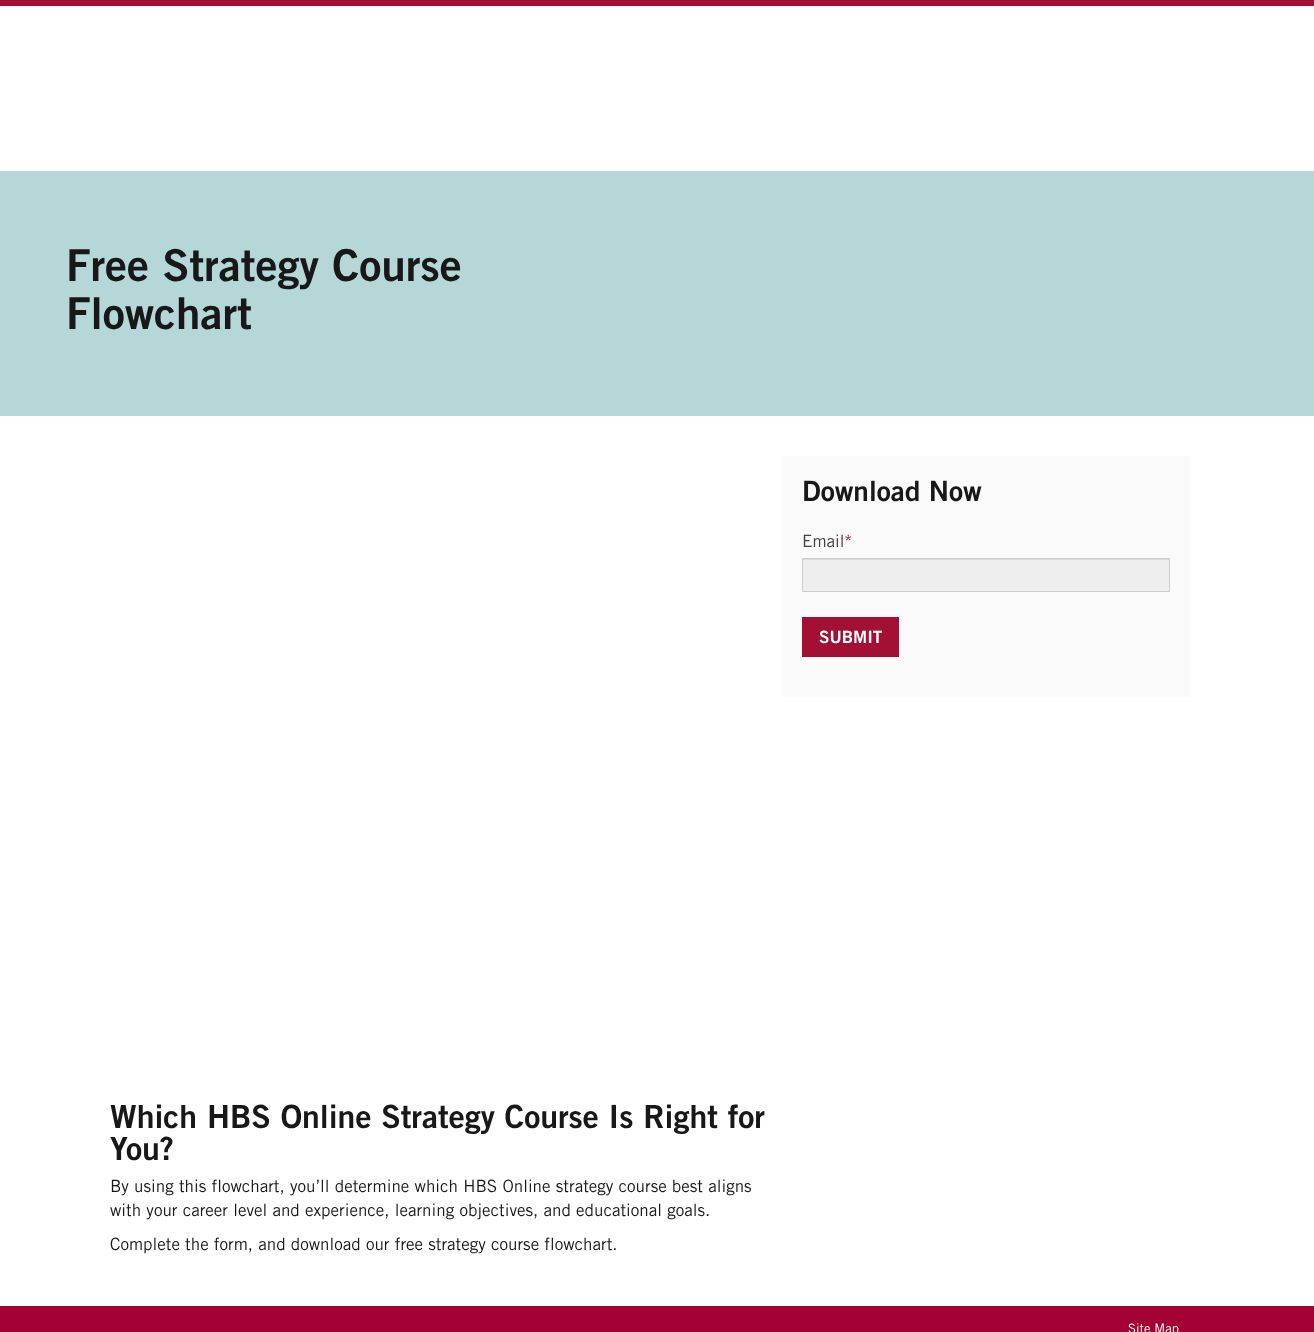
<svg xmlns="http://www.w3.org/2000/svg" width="1314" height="1332">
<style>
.a{font:bold 44px Trade Gothic;fill:#181818}
.b{font:bold 28px Trade Gothic;fill:#181818}
.c{font:17px Trade Gothic;fill:#414141}
.d{font:17px Trade Gothic;fill:#a40134}
.e{font:bold 17px Trade Gothic;fill:#fff}
.f{font:bold 32px Trade Gothic;fill:#181818}
.g{font:17px Trade Gothic;fill:#181818}
.h{font:13px Trade Gothic;fill:#fff}
</style>
<rect width="100%" height="100%" fill="#fff"/>
<path fill="#a41034" d="M0 0h1314v6H0z"/>
<path fill="#b5d7d8" d="M0 171h1314v245H0z"/>
<path fill="#fafafa" d="M782 456h408v241H782z"/>
<path fill="#eee" d="M803 560h366v31H803z"/>
<path fill="#dbdbdb" d="M803 559h366v1H803z"/>
<path fill="none" stroke="#ccc" d="M802.5 558.5h367v33H802.5z"/>
<path fill="#a41034" d="M802 617h97v40H802z"/>
<path fill="#a40134" d="M0 1306h1314v26H0z"/>
<text class="a" x="66" y="281">Free Strategy Course</text>
<text class="a" x="66" y="329">Flowchart</text>
<text class="b" x="802" y="501">Download Now</text>
<text class="c" x="802" y="547">Email</text>
<text class="d" x="844" y="547">*</text>
<text class="e" x="819" y="643">SUBMIT</text>
<text class="f" x="110" y="1128">Which HBS Online Strategy Course Is Right for</text>
<text class="f" x="110" y="1160">You?</text>
<text class="g" x="110" y="1192">By using this flowchart, you’ll determine which HBS Online strategy course best aligns</text>
<text class="g" x="110" y="1216">with your career level and experience, learning objectives, and educational goals.</text>
<text class="g" x="110" y="1250">Complete the form, and download our free strategy course flowchart.</text>
<text class="h" x="1128" y="1333">Site Map</text>
</svg>
